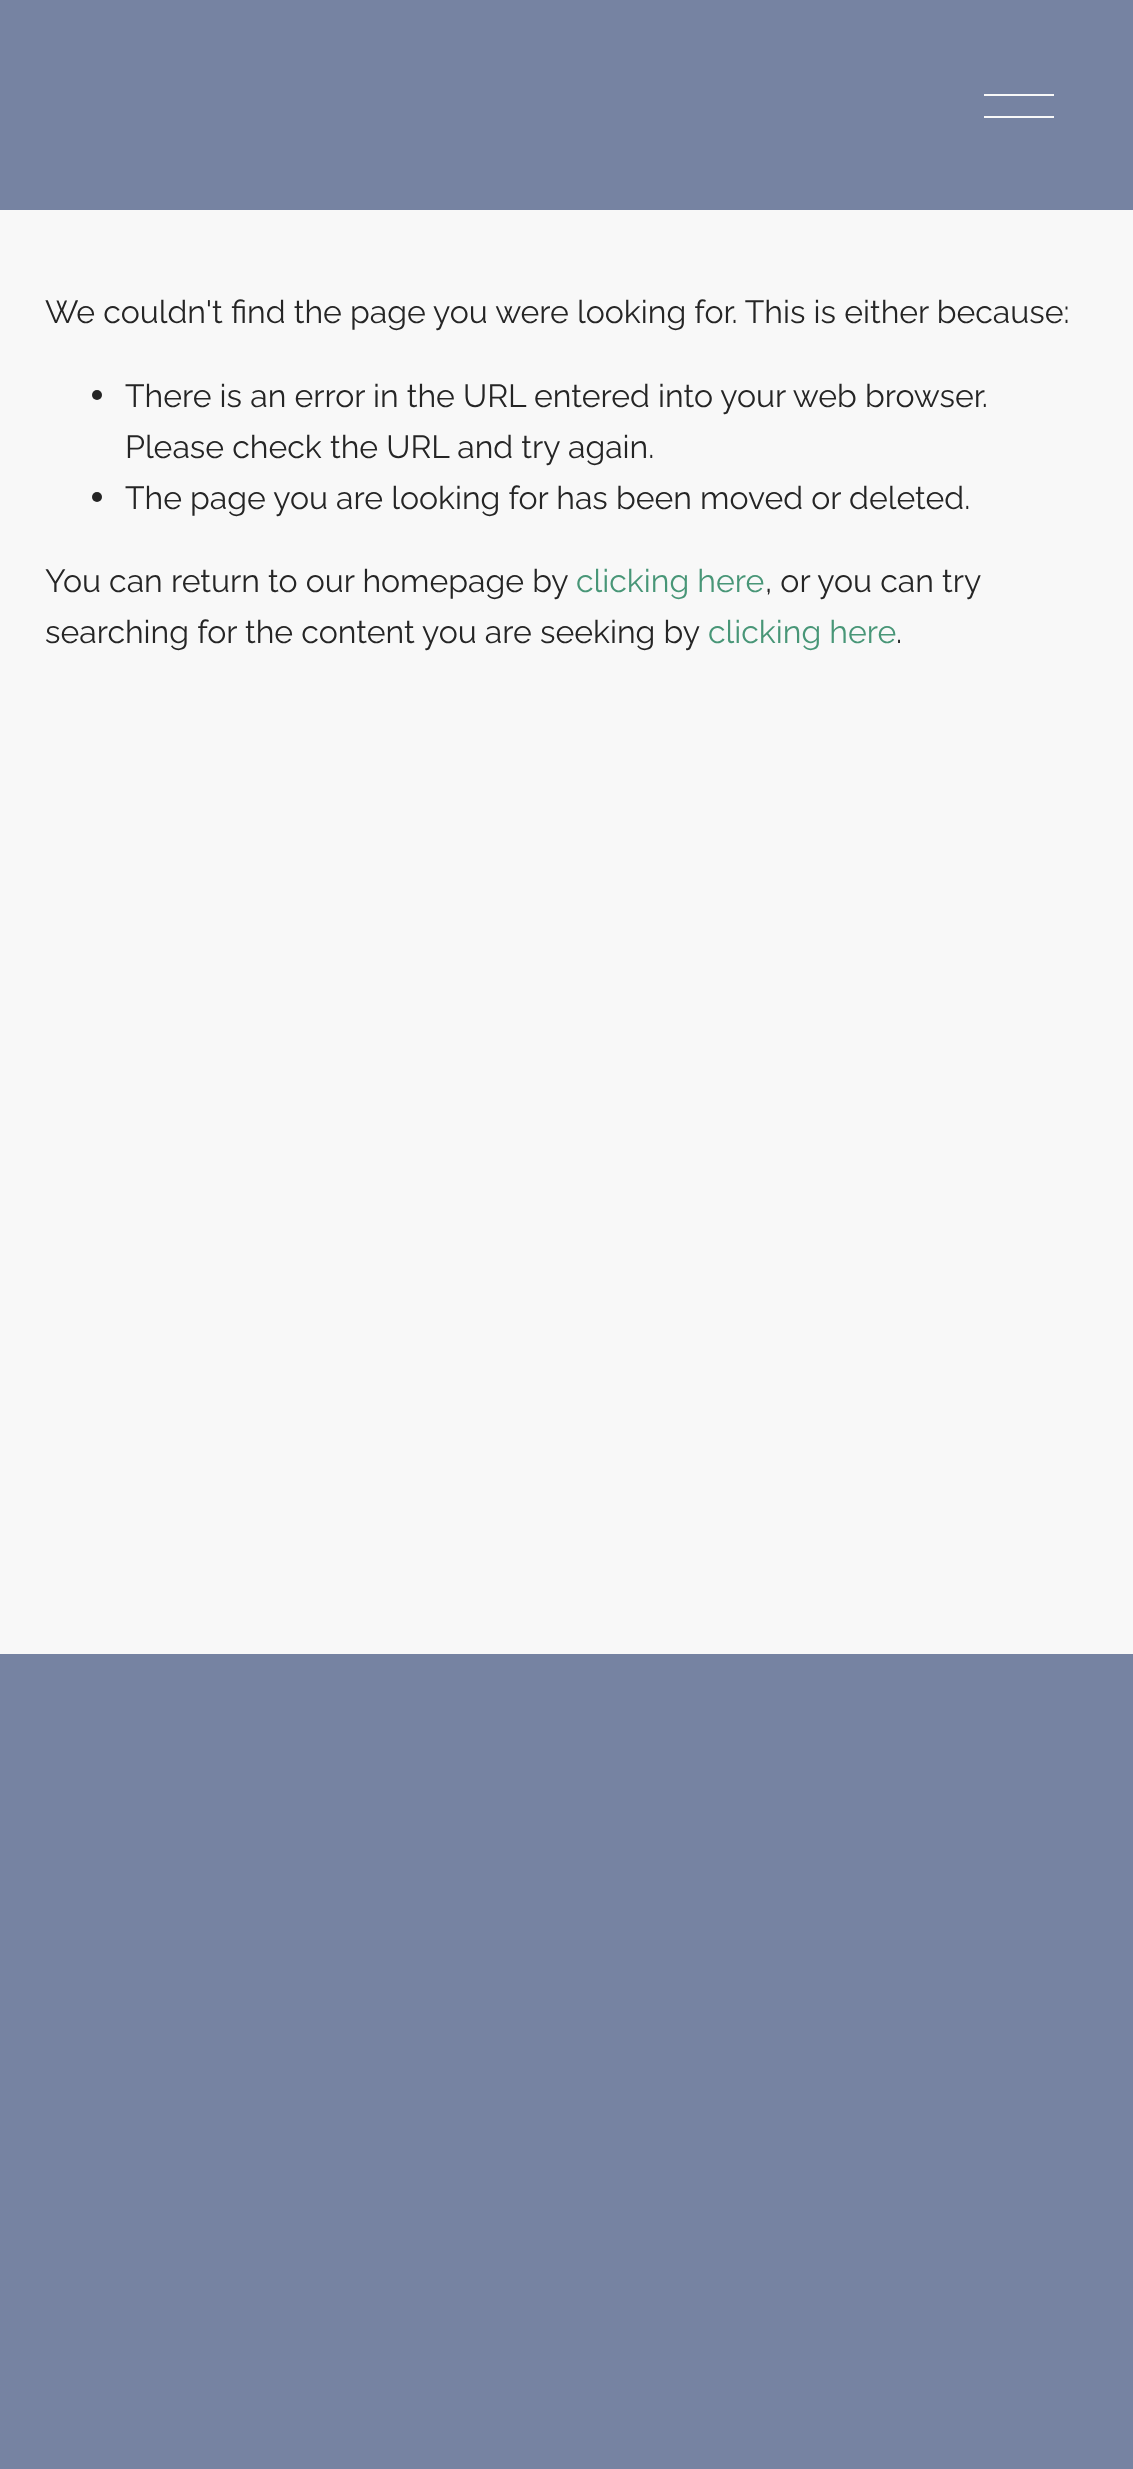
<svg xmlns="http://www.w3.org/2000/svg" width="1133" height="2469">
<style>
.a{font:32px Raleway;fill:#252525}
.b{font:32px Raleway;fill:#489677}
</style>
<rect width="100%" height="100%" fill="#f8f8f8"/>
<path fill="#7683a2" d="M0 0h1133v210H0z"/>
<path fill="#f8f8f8" d="M984 94h70v2H984z"/>
<path fill="#f8f8f8" d="M984 116h70v2H984z"/>
<circle fill="#252525" cx="97" cy="395" r="5"/>
<circle fill="#252525" cx="97" cy="497" r="5"/>
<path fill="#7683a2" d="M0 1654h1133v815H0z"/>
<text class="a" x="45" y="323">We couldn't find the page you were looking for. This is either because:</text>
<text class="a" x="125" y="407">There is an error in the URL entered into your web browser.</text>
<text class="a" x="125" y="458">Please check the URL and try again.</text>
<text class="a" x="125" y="509">The page you are looking for has been moved or deleted.</text>
<text class="a" x="45" y="592">You can return to our homepage by</text>
<text class="b" x="576" y="592">clicking here</text>
<text class="a" x="765" y="592">, or you can try</text>
<text class="a" x="45" y="643">searching for the content you are seeking by</text>
<text class="b" x="708" y="643">clicking here</text>
<text class="a" x="896" y="643">.</text>
</svg>
